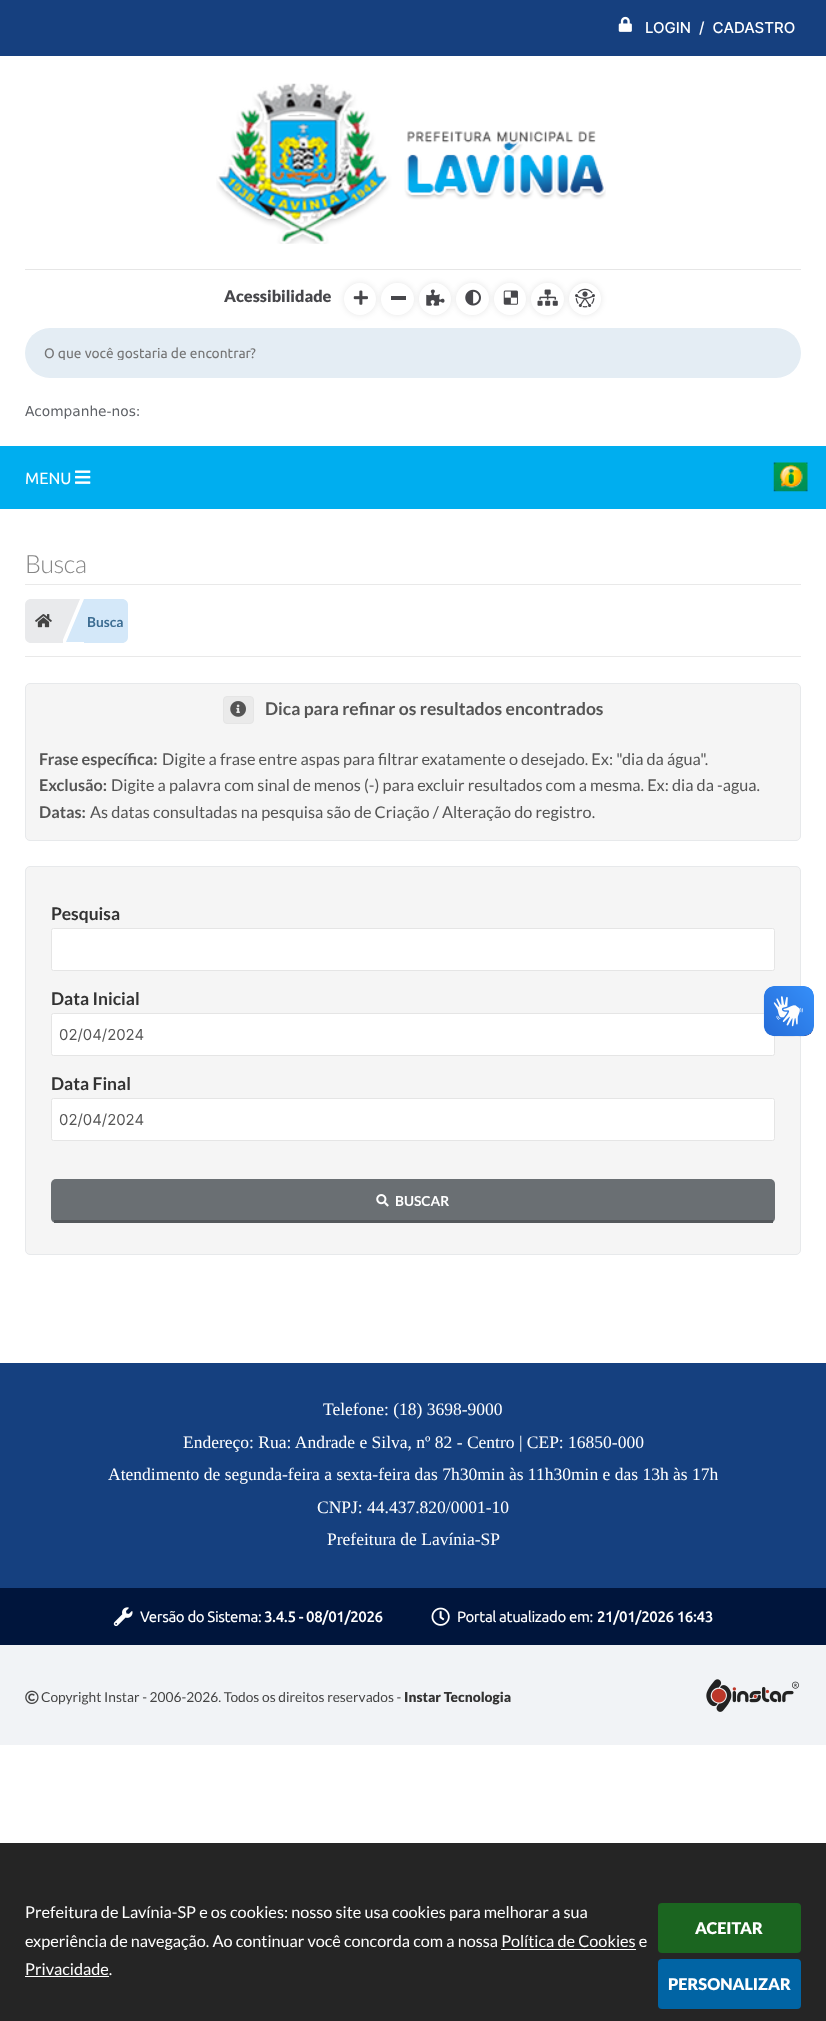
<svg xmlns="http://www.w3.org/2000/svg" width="826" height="2021">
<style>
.a{font:500 15px Inter;fill:#fff}
.b{font:16.25px Lato;fill:#fff}
.c{font:900 16.25px Lato;fill:#fff}
.d{font:900 16.25px Lato;fill:#47474b}
.e{font:13.75px Ubuntu;fill:#757575}
.f{font:13.75px DejaVu Sans;fill:#5e6166}
.g{font:16.25px Ubuntu;fill:#fff}
.h{font:300 25px Lato;letter-spacing:-0.5px;fill:#868686}
.i{font:bold 13.75px Lato;fill:#3d6d92}
.j{font:bold 17.5px Lato;fill:#555}
.k{font:bold 16.25px Lato;fill:#555}
.l{font:16.25px Lato;fill:#555}
.m{font:bold 17.5px Lato;fill:#333}
.n{font:15px Inter;fill:#555}
.o{font:bold 13.75px Lato;fill:#fff}
.p{font:17.5px Liberation Serif;fill:#fff}
.q{font:15px Ubuntu;letter-spacing:-0.4px;fill:#fff}
.r{font:500 15px Ubuntu;letter-spacing:-0.4px;fill:#fff}
.s{font:13.75px Lato;fill:#444}
.t{font:900 13.75px Lato;fill:#333}
</style>
<defs>
<clipPath id="clip1"><path d="M44 345h724v15H44z"/></clipPath>
</defs>
<rect width="100%" height="100%" fill="#fff"/>
<path fill="#252525" d="M0 1843h826v178H0z"/>
<path fill="#16407f" d="M0 0h826v56H0z"/>
<image href="1.png" x="618" y="16" width="14" height="16"/>
<rect fill="#f5f5f5" stroke="#e7e9eb" x="25.5" y="866.5" width="775" height="388" rx="4.5"/>
<rect fill="#fff" stroke="#e5e5e5" x="51.5" y="1013.5" width="723" height="42" rx="2"/>
<image href="2.png" x="763" y="986" width="51" height="51"/>
<image href="3.png" x="764" y="986" width="50" height="50"/>
<path fill="#fff" d="M501 1949h135v1H501z"/>
<path fill="#fff" d="M25 1976h84v1H25z"/>
<rect fill="#1b6520" x="658" y="1903" width="143" height="50" rx="4"/>
<rect fill="#0164a4" x="658" y="1959" width="143" height="50" rx="4"/>
<image href="4.png" x="216" y="83" width="390" height="161"/>
<path fill="#e6e6e6" d="M25 269h776v1H25z"/>
<rect fill="#0000001a" filter="blur(3px)" x="344" y="283" width="32" height="32" rx="16"/>
<circle fill="#fff" cx="360" cy="299" r="16"/>
<image href="5.png" x="353" y="290" width="15" height="15"/>
<rect fill="#0000001a" filter="blur(3px)" x="381" y="283" width="33" height="32" rx="16"/>
<rect fill="#fff" x="381" y="283" width="33" height="32" rx="16"/>
<path fill="#47474b" d="M391 296h15v4H391z"/>
<rect fill="#0000001a" filter="blur(3px)" x="419" y="283" width="32" height="32" rx="16"/>
<circle fill="#fff" cx="435" cy="299" r="16"/>
<image href="6.png" x="426" y="289" width="19" height="17"/>
<rect fill="#0000001a" filter="blur(3px)" x="456" y="283" width="33" height="32" rx="16"/>
<rect fill="#fff" x="456" y="283" width="33" height="32" rx="16"/>
<image href="7.png" x="465" y="289" width="16" height="17"/>
<rect fill="#0000001a" filter="blur(3px)" x="494" y="283" width="32" height="32" rx="16"/>
<circle fill="#fff" cx="510" cy="299" r="16"/>
<image href="8.png" x="503" y="290" width="15" height="15"/>
<rect fill="#0000001a" filter="blur(3px)" x="531" y="283" width="33" height="32" rx="16"/>
<rect fill="#fff" x="531" y="283" width="33" height="32" rx="16"/>
<image href="9.png" x="537" y="289" width="21" height="17"/>
<rect fill="#0000001a" filter="blur(3px)" x="569" y="283" width="32" height="32" rx="16"/>
<circle fill="#fff" cx="585" cy="299" r="16"/>
<image href="10.png" x="575" y="288" width="20" height="20"/>
<rect fill="#e4edf4" x="25" y="328" width="776" height="50" rx="25"/>
<path fill="#00aeef" d="M0 446h826v63H0z"/>
<image href="11.png" x="75" y="470" width="16" height="14"/>
<image href="12.png" x="773" y="462" width="35" height="30"/>
<path fill="#e9e9e9" d="M25 584h776v1H25z"/>
<path fill="#e9e9e9" d="M25 656h776v1H25z"/>
<path fill="#e9eaec" d="M31 599h32v44h-32c-3.5 0-6-2.5-6-6v-32c0-3.5 2.5-6 6-6z"/>
<image href="13.png" x="35" y="614" width="17" height="14"/>
<path fill="#e9eaec" d="M62 599h18l-18 43z"/>
<path fill="#d4e8f9" d="M84 599h38c3.5 0 6 2.5 6 6v32c0 3.5-2.5 6-6 6h-38z"/>
<path fill="#d4e8f9" d="M84 642h-18l18-43z"/>
<rect fill="#f5f5f5" stroke="#e7e9eb" x="25.5" y="683.5" width="775" height="157" rx="4.5"/>
<rect fill="#eaeaea" stroke="#e5e5e5" x="223.5" y="696.5" width="30" height="27" rx="3.5"/>
<image href="14.png" x="230" y="701" width="16" height="16"/>
<rect fill="#fff" stroke="#e5e5e5" x="51.5" y="928.5" width="723" height="42" rx="2"/>
<rect fill="#fff" stroke="#e5e5e5" x="51.5" y="1098.5" width="723" height="42" rx="2"/>
<rect fill="#6a6f73" x="51" y="1179" width="724" height="44" rx="5"/>
<path fill="#54585b" d="M54 1220h719v3H54z"/>
<image href="15.png" x="376" y="1194" width="13" height="13"/>
<path fill="#15407f" d="M0 1363h826v225H0z"/>
<path fill="#00153c" d="M0 1588h826v57H0z"/>
<image href="16.png" x="113" y="1607" width="20" height="20"/>
<image href="17.png" x="431" y="1607" width="19" height="19"/>
<path fill="#f1f3f6" d="M0 1645h826v100H0z"/>
<image href="18.png" x="25" y="1690" width="14" height="14"/>
<image href="19.png" x="706" y="1679" width="93" height="33"/>
<text class="a" xml:space="preserve" x="645" y="33">LOGIN  /  CADASTRO</text>
<text class="b" x="25" y="1918">Prefeitura de Lavínia-SP e os cookies: nosso site usa cookies para melhorar a sua</text>
<text class="b" x="25" y="1947">experiência de navegação. Ao continuar você concorda com a nossa Política de Cookies e</text>
<text class="b" x="25" y="1975">Privacidade.</text>
<text class="c" x="695" y="1934">ACEITAR</text>
<text class="c" x="668" y="1990">PERSONALIZAR</text>
<text class="d" x="224" y="302">Acessibilidade</text>
<g clip-path="url(#clip1)">
<text class="e" x="44" y="358">O que você gostaria de encontrar?</text>
</g>
<text class="f" x="25" y="416">Acompanhe-nos:</text>
<text class="g" x="25" y="484">MENU</text>
<text class="h" x="25" y="573">Busca</text>
<text class="i" x="87" y="627">Busca</text>
<text class="j" x="265" y="715">Dica para refinar os resultados encontrados</text>
<text class="k" x="39" y="765">Frase específica:</text>
<text class="l" x="162" y="765">Digite a frase entre aspas para filtrar exatamente o desejado. Ex: "dia da água".</text>
<text class="k" x="39" y="791">Exclusão:</text>
<text class="l" x="111" y="791">Digite a palavra com sinal de menos (-) para excluir resultados com a mesma. Ex: dia da -agua.</text>
<text class="k" x="39" y="818">Datas:</text>
<text class="l" x="90" y="818">As datas consultadas na pesquisa são de Criação / Alteração do registro.</text>
<text class="m" x="51" y="920">Pesquisa</text>
<text class="m" x="51" y="1005">Data Inicial</text>
<text class="n" x="59" y="1040">02/04/2024</text>
<text class="m" x="51" y="1090">Data Final</text>
<text class="n" x="59" y="1125">02/04/2024</text>
<text class="o" x="395" y="1206">BUSCAR</text>
<text class="p" x="323" y="1415">Telefone: (18) 3698-9000</text>
<text class="p" x="183" y="1448">Endereço: Rua: Andrade e Silva, nº 82 - Centro | CEP: 16850-000</text>
<text class="p" x="108" y="1480">Atendimento de segunda-feira a sexta-feira das 7h30min às 11h30min e das 13h às 17h</text>
<text class="p" x="317" y="1513">CNPJ: 44.437.820/0001-10</text>
<text class="p" x="327" y="1545">Prefeitura de Lavínia-SP</text>
<text class="q" x="140" y="1622">Versão do Sistema:</text>
<text class="r" x="264" y="1622">3.4.5 - 08/01/2026</text>
<text class="q" x="457" y="1622">Portal atualizado em:</text>
<text class="r" x="597" y="1622">21/01/2026 16:43</text>
<text class="s" x="41" y="1702">Copyright Instar - 2006-2026. Todos os direitos reservados -</text>
<text class="t" x="404" y="1702">Instar Tecnologia</text>
</svg>
